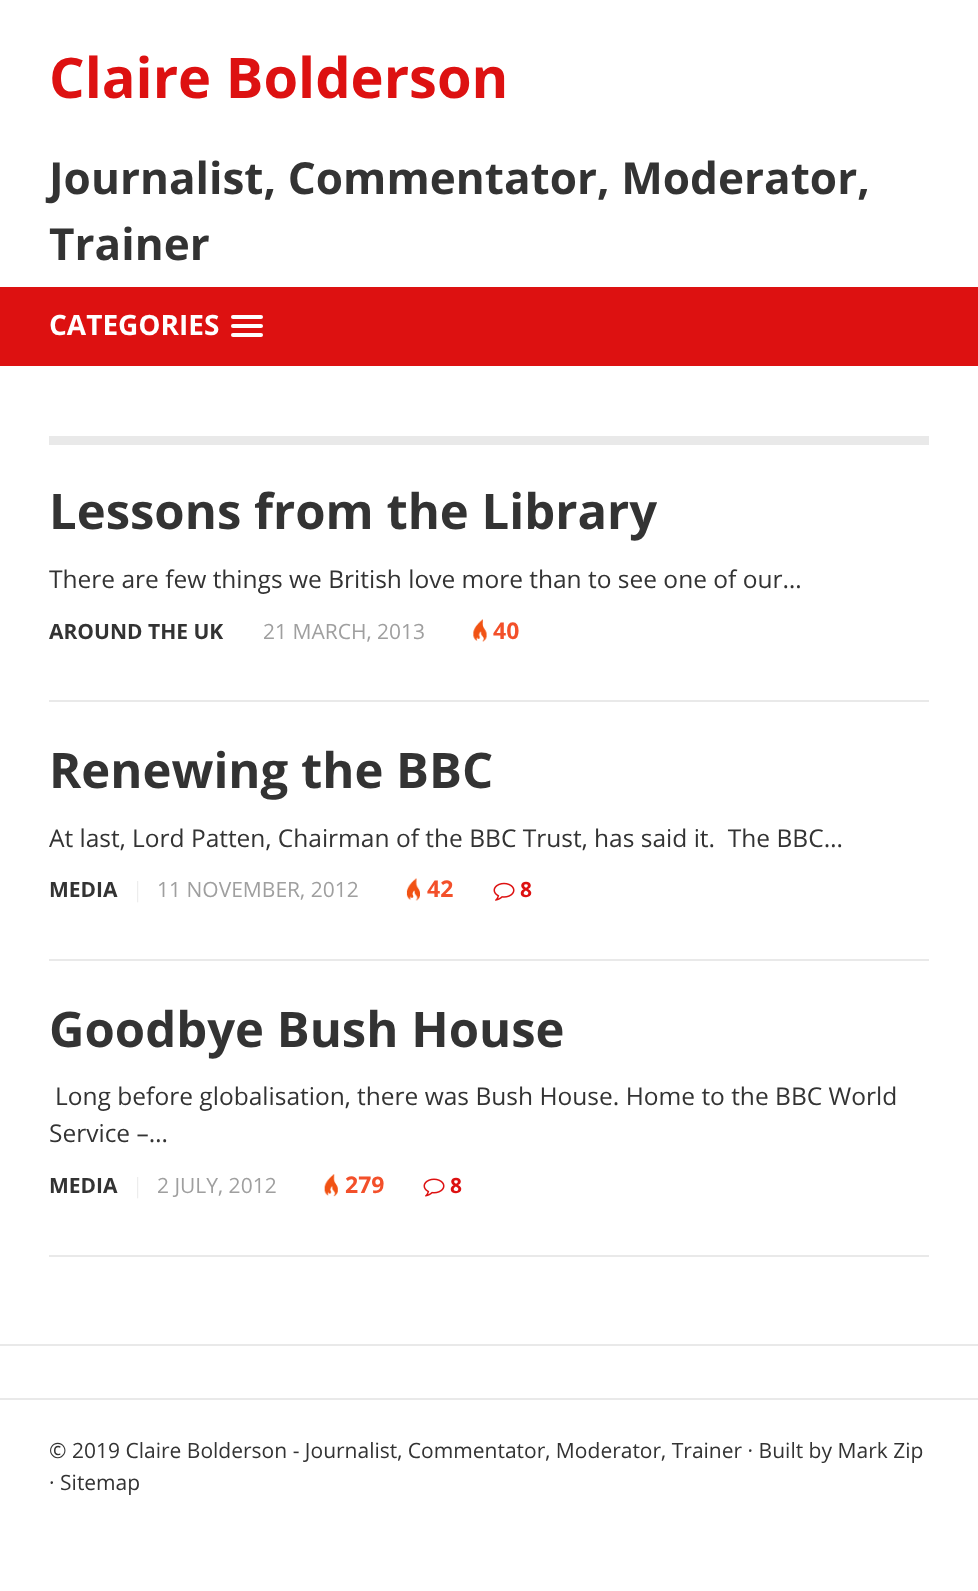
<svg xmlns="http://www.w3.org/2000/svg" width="978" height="1591">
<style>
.a{font:bold 56px Open Sans;fill:#d11}
.b{font:bold 44.1px Open Sans;fill:#333}
.c{font:bold 28px Open Sans;fill:#fff}
.d{font:bold 49px Open Sans;fill:#333}
.e{font:24.5px Open Sans;fill:#333}
.f{font:bold 21px Open Sans;fill:#333}
.g{font:21px Open Sans;fill:#9f9f9f}
.h{font:bold 23px Open Sans;fill:#f3502a}
.i{font:300 21px Open Sans;fill:#e9e9e9}
.j{font:bold 21px Open Sans;fill:#d11}
.k{font:21px Open Sans;fill:#333}
</style>
<rect width="100%" height="100%" fill="#fff"/>
<path fill="#d11" d="M0 287h978v79H0z"/>
<rect fill="#fff" x="231" y="315" width="32" height="4" rx="2"/>
<rect fill="#fff" x="231" y="324" width="32" height="4" rx="2"/>
<rect fill="#fff" x="231" y="333" width="32" height="4" rx="2"/>
<path fill="#e9e9e9" d="M49 436h880v9H49z"/>
<path fill="#e9e9e9" d="M49 700h880v2H49z"/>
<image href="1.png" x="473" y="619" width="14" height="23"/>
<path fill="#e9e9e9" d="M49 959h880v2H49z"/>
<image href="2.png" x="406" y="878" width="14" height="23"/>
<image href="3.png" x="493" y="882" width="22" height="19"/>
<path fill="#e9e9e9" d="M49 1255h880v2H49z"/>
<image href="4.png" x="324" y="1174" width="14" height="23"/>
<image href="5.png" x="423" y="1178" width="22" height="19"/>
<path fill="#e9e9e9" d="M0 1344h978v2H0z"/>
<path fill="#e9e9e9" d="M0 1398h978v2H0z"/>
<text class="a" x="49" y="98">Claire Bolderson</text>
<text class="b" x="49" y="194">Journalist, Commentator, Moderator,</text>
<text class="b" x="49" y="260">Trainer</text>
<text class="c" x="49" y="335">CATEGORIES</text>
<text class="d" x="49" y="529">Lessons from the Library</text>
<text class="e" x="49" y="588">There are few things we British love more than to see one of our…</text>
<text class="f" x="49" y="639">AROUND THE UK</text>
<text class="g" x="263" y="639">21 MARCH, 2013</text>
<text class="h" x="493" y="639">40</text>
<text class="d" x="49" y="788">Renewing the BBC</text>
<text class="e" xml:space="preserve" x="49" y="847">At last, Lord Patten, Chairman of the BBC Trust, has said it.  The BBC…</text>
<text class="f" x="49" y="897">MEDIA</text>
<text class="i" x="132" y="897">|</text>
<text class="g" x="157" y="897">11 NOVEMBER, 2012</text>
<text class="h" x="427" y="897">42</text>
<text class="j" x="520" y="897">8</text>
<text class="d" x="49" y="1047">Goodbye Bush House</text>
<text class="e" x="55" y="1105">Long before globalisation, there was Bush House. Home to the BBC World</text>
<text class="e" x="49" y="1142">Service –…</text>
<text class="f" x="49" y="1193">MEDIA</text>
<text class="i" x="132" y="1193">|</text>
<text class="g" x="157" y="1193">2 JULY, 2012</text>
<text class="h" x="345" y="1193">279</text>
<text class="j" x="450" y="1193">8</text>
<text class="k" x="49" y="1458">© 2019 Claire Bolderson - Journalist, Commentator, Moderator, Trainer · Built by Mark Zip</text>
<text class="k" x="49" y="1490">· Sitemap</text>
</svg>
